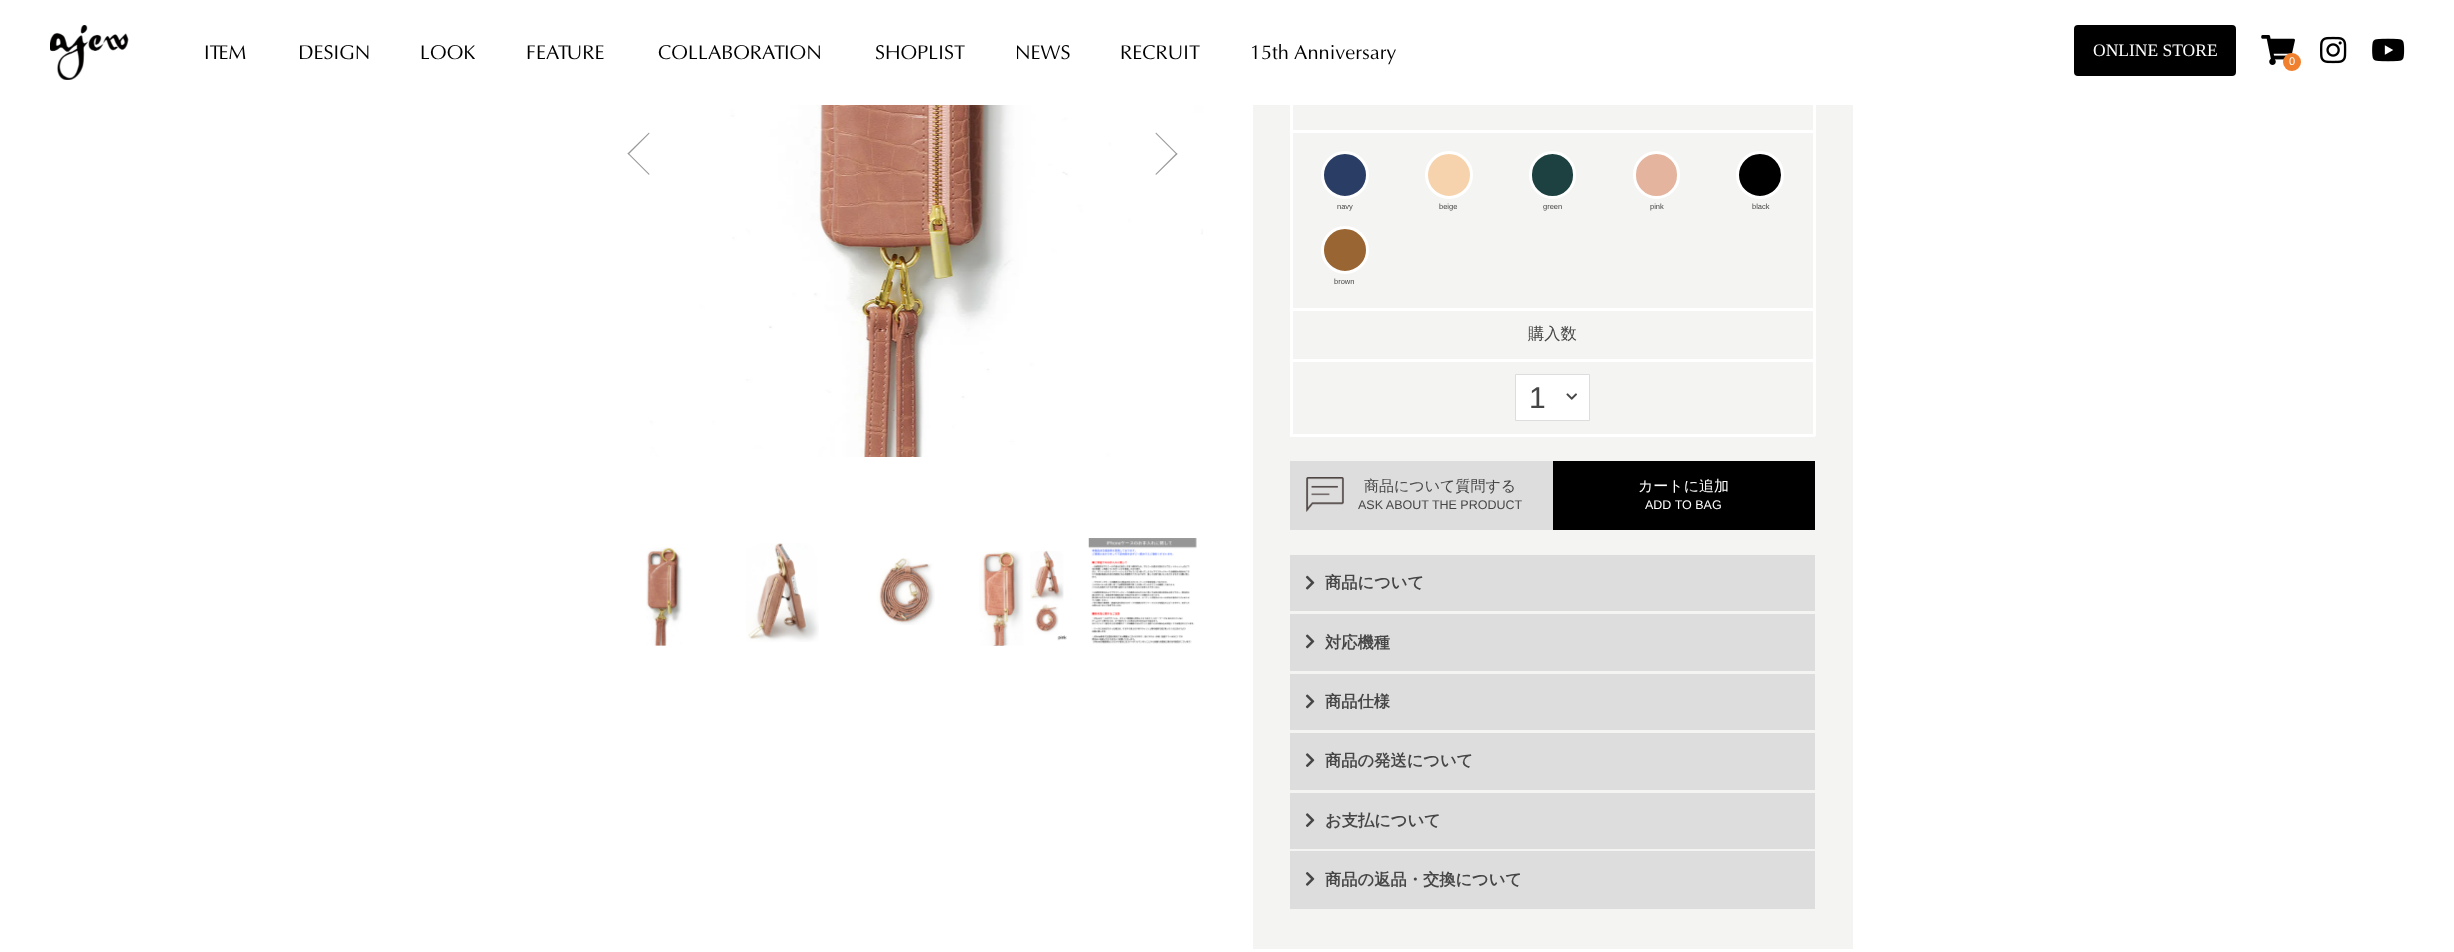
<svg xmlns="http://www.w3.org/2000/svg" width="2454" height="952">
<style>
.a{font:20px Optima;fill:#000}
.b{font:17.5px Liberation Serif;fill:#fff}
.c{font:11px Liberation Sans;fill:#fff}
.d{font:7.5px Liberation Sans;fill:#464646}
.e{font:500 16.25px WenQuanYi Zen Hei;fill:#464646}
.f{font:30px Liberation Sans;fill:#464646}
.g{font:500 15px WenQuanYi Zen Hei;fill:#464646}
.h{font:12.5px Liberation Sans;fill:#464646}
.i{font:500 15px WenQuanYi Zen Hei;fill:#fff}
.j{font:12.5px Liberation Sans;fill:#fff}
.k{font:bold 16.25px WenQuanYi Zen Hei;fill:#464646}
</style>
<rect width="100%" height="100%" fill="#fff"/>
<image href="1.png" x="50" y="25" width="79" height="55"/>
<rect fill="#000" stroke="#000" stroke-width="3" x="2075.5" y="26.5" width="159" height="48" rx="2.5"/>
<image href="2.png" x="2320" y="36" width="27" height="28"/>
<image href="3.png" x="2372" y="38" width="33" height="24"/>
<image href="4.png" x="2261" y="35" width="34" height="30"/>
<circle fill="#f0802e" cx="2292" cy="62" r="9"/>
<path fill="#989999" d="M649 175l-21.5-21.5l1-.5l21 21z"/>
<path fill="#989999" d="M628.5 154.5l-1-1l21.5-21l.5 1z"/>
<image href="5.png" x="650" y="105" width="553" height="352"/>
<path fill="#989999" d="M1156 132.5l21.5 21.5l-1 .5l-21-21z"/>
<path fill="#989999" d="M1176.5 153l1 1l-21.5 21l-.5-1z"/>
<image href="6.png" x="646" y="547" width="37" height="99"/>
<image href="7.png" x="746" y="543" width="73" height="99"/>
<image href="8.png" x="877" y="558" width="58" height="67"/>
<image href="9.png" x="979" y="551" width="88" height="95"/>
<image href="10.png" x="1088" y="538" width="109" height="106"/>
<path fill="#f4f4f3" d="M1253 105h600v844H1253z"/>
<path fill="#fff" d="M1813 105h3v331H1813z"/>
<path fill="#fff" d="M1290 434h525v3H1290z"/>
<path fill="#fff" d="M1290 105h3v331H1290z"/>
<path fill="#fff" d="M1293 130h520v3H1293z"/>
<circle fill="#2a3d65" stroke="#fff" stroke-width="3" cx="1345" cy="175" r="22.5"/>
<circle fill="#f6d3ad" stroke="#fff" stroke-width="3" cx="1449" cy="175" r="22.5"/>
<rect fill="#1d4141" stroke="#fff" stroke-width="3" x="1530.5" y="152.5" width="44" height="45" rx="22"/>
<rect fill="#e4b49e" stroke="#fff" stroke-width="3" x="1634.5" y="152.5" width="44" height="45" rx="22"/>
<circle fill="#000" stroke="#fff" stroke-width="3" cx="1760" cy="175" r="22.5"/>
<circle fill="#963" stroke="#fff" stroke-width="3" cx="1345" cy="250" r="22.5"/>
<path fill="#fff" d="M1293 308h520v3H1293z"/>
<path fill="#fff" d="M1293 359h520v3H1293z"/>
<path fill="#fff" stroke="#ddd" d="M1515.5 374.5h74v46H1515.5z"/>
<image href="11.png" x="1566" y="393" width="11" height="7"/>
<path fill="#ddd" d="M1290 461h263v69H1290z"/>
<image href="12.png" x="1306" y="477" width="38" height="35"/>
<path fill="#000" d="M1553 461h262v69H1553z"/>
<path fill="#ddd" d="M1290 555h525v56H1290z"/>
<image href="13.png" x="1305" y="575" width="10" height="15"/>
<path fill="#ddd" d="M1290 614h525v57H1290z"/>
<image href="14.png" x="1305" y="634" width="10" height="15"/>
<path fill="#ddd" d="M1290 674h525v56H1290z"/>
<image href="14.png" x="1305" y="694" width="10" height="15"/>
<path fill="#ddd" d="M1290 733h525v57H1290z"/>
<image href="15.png" x="1305" y="753" width="10" height="14"/>
<path fill="#ddd" d="M1290 793h525v56H1290z"/>
<image href="15.png" x="1305" y="813" width="10" height="14"/>
<path fill="#ddd" d="M1290 851h525v58H1290z"/>
<image href="16.png" x="1305" y="872" width="10" height="14"/>
<text class="a" x="204" y="59">ITEM</text>
<text class="a" x="298" y="59">DESIGN</text>
<text class="a" x="420" y="59">LOOK</text>
<text class="a" x="526" y="59">FEATURE</text>
<text class="a" x="658" y="59">COLLABORATION</text>
<text class="a" x="875" y="59">SHOPLIST</text>
<text class="a" x="1015" y="59">NEWS</text>
<text class="a" x="1120" y="59">RECRUIT</text>
<text class="a" x="1250" y="59">15th Anniversary</text>
<text class="b" x="2093" y="56">ONLINE STORE</text>
<text class="c" x="2289" y="65">0</text>
<text class="d" x="1337" y="209">navy</text>
<text class="d" x="1439" y="209">beige</text>
<text class="d" x="1543" y="209">green</text>
<text class="d" x="1650" y="209">pink</text>
<text class="d" x="1752" y="209">black</text>
<text class="d" x="1334" y="284">brown</text>
<text class="e" x="1528" y="339">購入数</text>
<text class="f" x="1529" y="408">1</text>
<text class="g" x="1364" y="491">商品について質問する</text>
<text class="h" x="1358" y="509">ASK ABOUT THE PRODUCT</text>
<text class="i" x="1638" y="491">カートに追加</text>
<text class="j" x="1645" y="509">ADD TO BAG</text>
<text class="k" x="1325" y="588">商品について</text>
<text class="k" x="1325" y="648">対応機種</text>
<text class="k" x="1325" y="707">商品仕様</text>
<text class="k" x="1325" y="766">商品の発送について</text>
<text class="k" x="1325" y="826">お支払について</text>
<text class="k" x="1325" y="885">商品の返品・交換について</text>
</svg>
